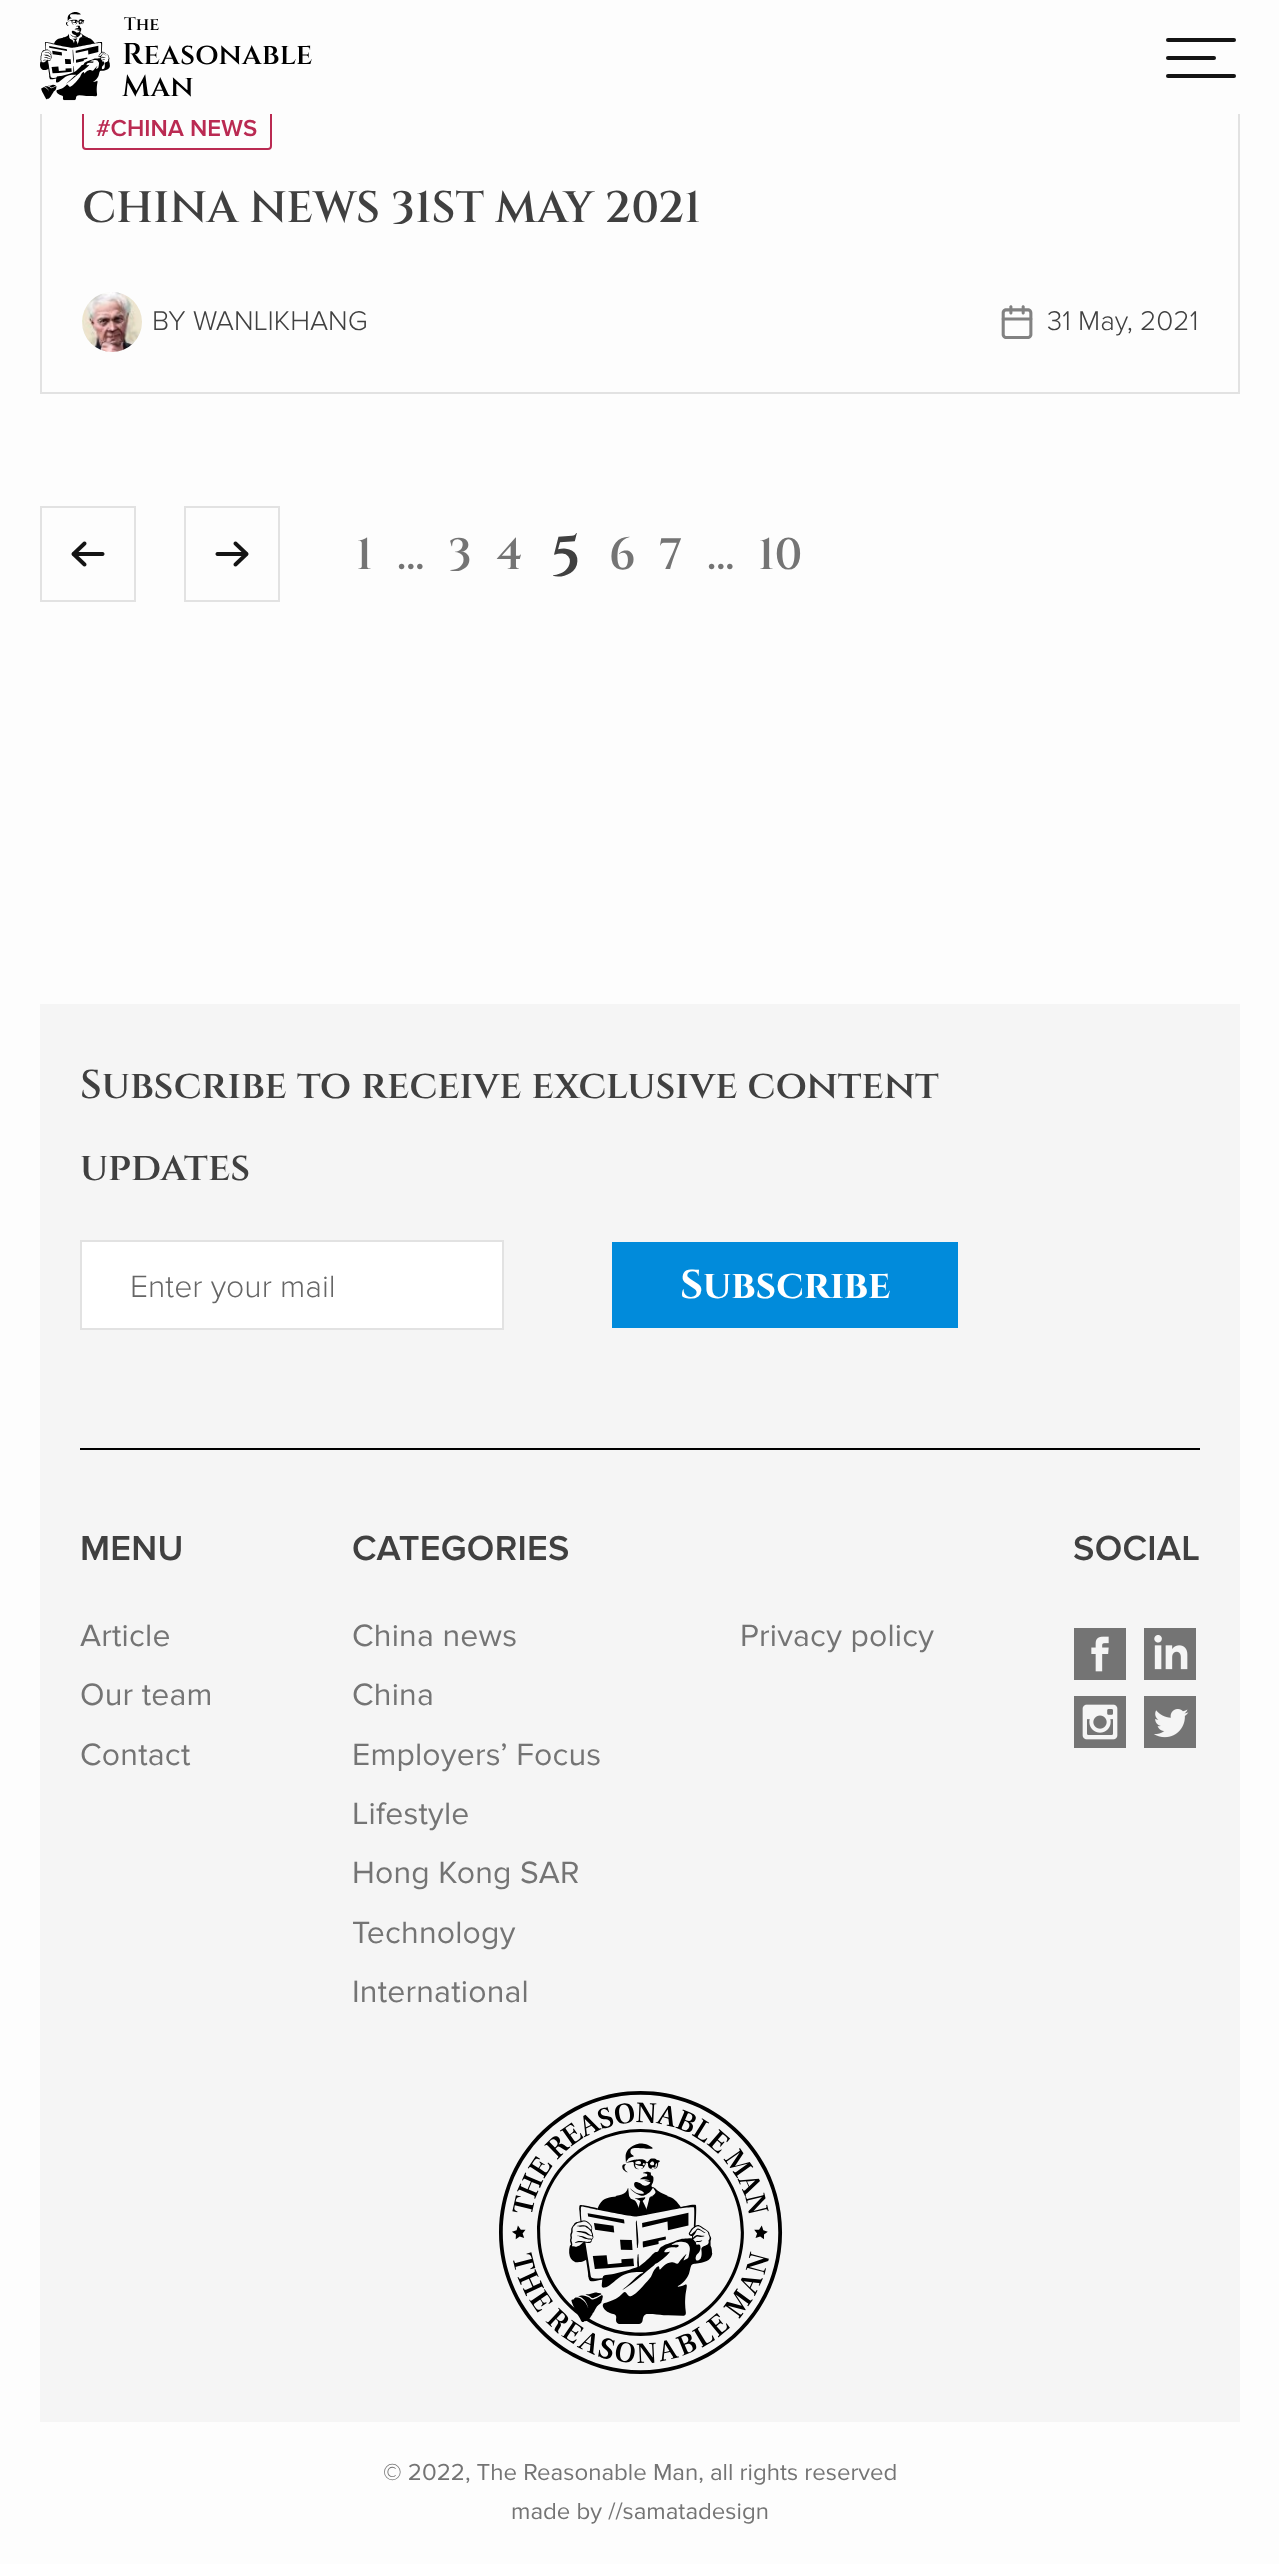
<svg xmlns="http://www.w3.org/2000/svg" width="1279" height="2564">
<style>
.a{font:600 24px Proxima Nova;fill:#ba2a52}
.b{font:600 44px Cinzel;fill:#404040}
.c{font:300 28px Proxima Nova;fill:#404040}
.d{font:600 44px Cinzel;fill:#747474}
.e{font:600 56px Cinzel;fill:#404040}
.f{font:600 40px Cinzel;fill:#404040}
.g{font:300 32px Proxima Nova;fill:#666}
.h{font:bold 40px Cinzel;fill:#fff}
.i{font:600 36px Proxima Nova;letter-spacing:0.25px;fill:#404040}
.j{font:32px Proxima Nova;letter-spacing:0.2px;fill:#747474}
.k{font:24px Proxima Nova;fill:#747474}
</style>
<rect width="100%" height="100%" fill="#fdfdfd"/>
<path fill="none" stroke="#e2e2e2" stroke-width="2" d="M41 -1h1198v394H41z"/>
<rect fill="none" stroke="#ba2a52" stroke-width="2" x="83" y="107" width="188" height="42" rx="3"/>
<path fill="#fdfdfd" d="M40 0h1200v114H40z"/>
<image href="1.png" x="40" y="12" width="272" height="89"/>
<rect fill="#141414" x="1166" y="38" width="70" height="4" rx="2"/>
<rect fill="#141414" x="1166" y="56" width="50" height="4" rx="2"/>
<rect fill="#141414" x="1166" y="74" width="70" height="4" rx="2"/>
<image href="2.png" x="82" y="292" width="60" height="60"/>
<image href="3.png" x="1001" y="305" width="32" height="34"/>
<path fill="none" stroke="#e2e2e2" stroke-width="2" d="M41 507h94v94H41z"/>
<image href="4.png" x="71" y="541" width="34" height="26"/>
<path fill="none" stroke="#e2e2e2" stroke-width="2" d="M185 507h94v94H185z"/>
<image href="5.png" x="215" y="541" width="34" height="26"/>
<path fill="#f5f5f5" d="M40 1004h1200v1418H40z"/>
<path fill="#000" d="M80 1448h1120v2H80z"/>
<path fill="#fff" stroke="#e2e2e2" stroke-width="2" d="M81 1241h422v88H81z"/>
<path fill="#018bdb" d="M612 1242h346v86H612z"/>
<image href="6.png" x="1074" y="1628" width="52" height="52"/>
<image href="7.png" x="1144" y="1628" width="52" height="52"/>
<image href="8.png" x="1074" y="1696" width="52" height="52"/>
<image href="9.png" x="1144" y="1696" width="52" height="52"/>
<image href="10.png" x="499" y="2091" width="284" height="283"/>
<text class="a" x="96" y="136">#CHINA NEWS</text>
<text class="b" x="82" y="222">CHINA NEWS 31ST MAY 2021</text>
<text class="c" x="152" y="330">BY WANLIKHANG</text>
<text class="c" x="1047" y="330">31 May, 2021</text>
<text class="d" x="356" y="569">1</text>
<text class="d" x="397" y="569">...</text>
<text class="d" x="448" y="569">3</text>
<text class="d" x="496" y="569">4</text>
<text class="e" x="551" y="574">5</text>
<text class="d" x="609" y="569">6</text>
<text class="d" x="659" y="569">7</text>
<text class="d" x="707" y="569">...</text>
<text class="d" x="758" y="569">10</text>
<text class="f" x="80" y="1098">Subscribe to receive exclusive content</text>
<text class="f" x="80" y="1180">updates</text>
<text class="g" x="130" y="1297">Enter your mail</text>
<text class="h" x="680" y="1298">Subscribe</text>
<text class="i" x="80" y="1560">MENU</text>
<text class="j" x="80" y="1646">Article</text>
<text class="j" x="80" y="1705">Our team</text>
<text class="j" x="80" y="1765">Contact</text>
<text class="i" x="352" y="1560">CATEGORIES</text>
<text class="j" x="352" y="1646">China news</text>
<text class="j" x="352" y="1705">China</text>
<text class="j" x="352" y="1765">Employers’ Focus</text>
<text class="j" x="352" y="1824">Lifestyle</text>
<text class="j" x="352" y="1883">Hong Kong SAR</text>
<text class="j" x="352" y="1943">Technology</text>
<text class="j" x="352" y="2002">International</text>
<text class="j" x="740" y="1646">Privacy policy</text>
<text class="i" x="1073" y="1560">SOCIAL</text>
<text class="k" x="383" y="2480">© 2022, The Reasonable Man, all rights reserved</text>
<text class="k" x="511" y="2519">made by //samatadesign</text>
</svg>
